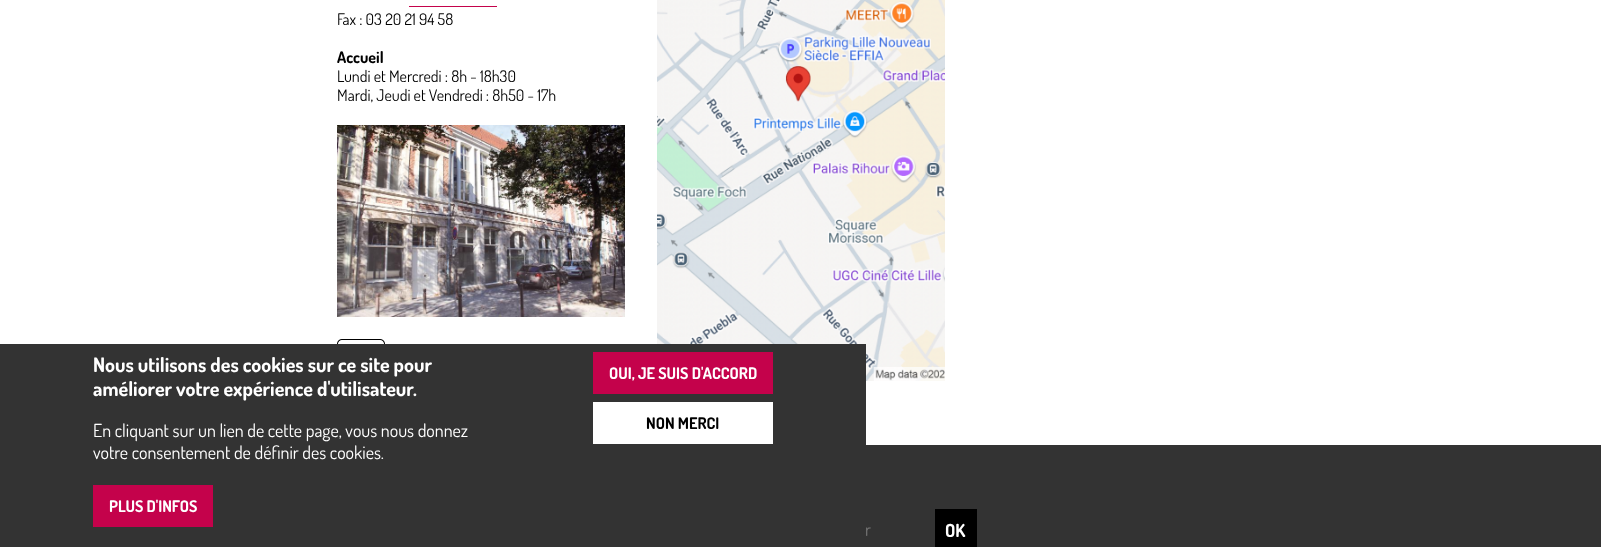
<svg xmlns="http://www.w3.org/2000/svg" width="1601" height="547">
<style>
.a{font:16px Dosis;fill:#000}
.b{font:bold 16px Dosis;fill:#000}
.c{font:18px Dosis;fill:#757575}
.d{font:bold 18px Dosis;fill:#fff}
.e{font:bold 20px Dosis;fill:#fff}
.f{font:18px Dosis;fill:#fff}
.g{font:bold 16px Dosis;fill:#fff}
</style>
<rect width="100%" height="100%" fill="#fff"/>
<path fill="#c4024b" d="M409 6h88v1H409z"/>
<image href="1.png" x="337" y="125" width="288" height="192"/>
<image href="2.png" x="337" y="339" width="48" height="5"/>
<image href="3.png" x="657" y="0" width="288" height="381"/>
<path fill="#333" d="M866 445h735v102H866z"/>
<path fill="#000" d="M935 509h42v38H935z"/>
<text class="a" x="337" y="25">Fax : 03 20 21 94 58</text>
<text class="b" x="337" y="63">Accueil</text>
<text class="a" x="337" y="82">Lundi et Mercredi : 8h - 18h30</text>
<text class="a" x="337" y="101">Mardi, Jeudi et Vendredi : 8h50 - 17h</text>
<text class="c" x="865" y="536">r</text>
<text class="d" x="945" y="537">OK</text>
<path fill="#333" d="M0 344h866v203H0z"/>
<text class="e" x="93" y="372">Nous utilisons des cookies sur ce site pour</text>
<text class="e" x="93" y="396">améliorer votre expérience d'utilisateur.</text>
<text class="f" x="93" y="437">En cliquant sur un lien de cette page, vous nous donnez</text>
<text class="f" x="93" y="459">votre consentement de définir des cookies.</text>
<path fill="#c4024b" d="M93 485h120v42H93z"/>
<text class="g" x="109" y="512">PLUS D'INFOS</text>
<path fill="#c4024b" d="M593 352h180v42H593z"/>
<text class="g" x="609" y="379">OUI, JE SUIS D'ACCORD</text>
<path fill="#fff" d="M593 402h180v42H593z"/>
<text class="b" x="646" y="429">NON MERCI</text>
</svg>
